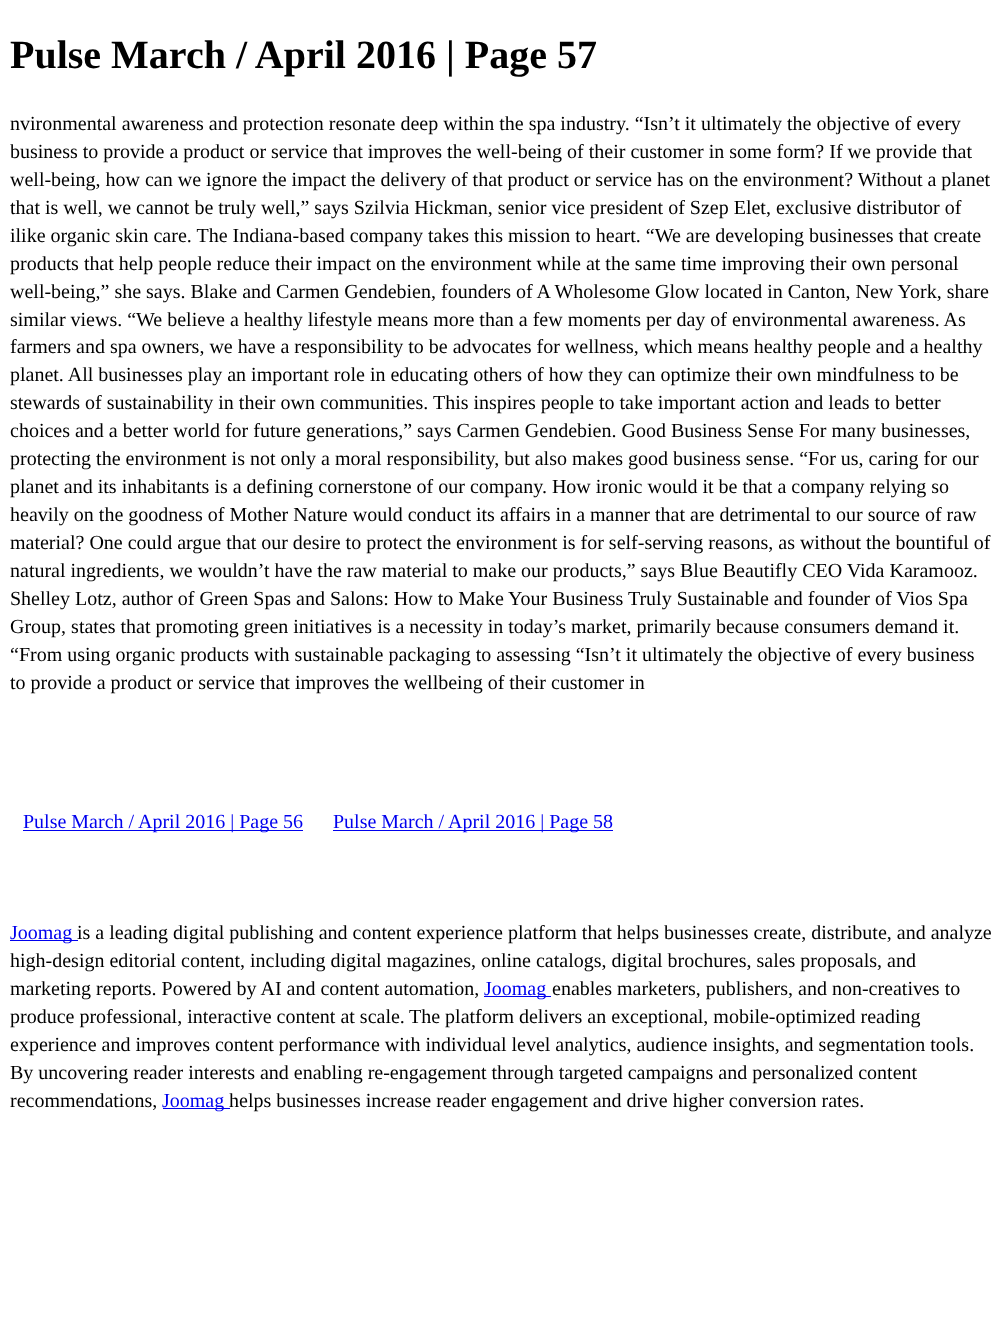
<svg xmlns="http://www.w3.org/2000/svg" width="1004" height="1343">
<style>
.a{font:bold 40px Liberation Serif;fill:#000}
.b{font:20px Liberation Serif;fill:#000}
.c{font:20px Liberation Serif;fill:#00e}
</style>
<rect width="100%" height="100%" fill="#fff"/>
<path fill="#00e" d="M23 830h280v1H23z"/>
<path fill="#00e" d="M333 830h280v1H333z"/>
<path fill="#00e" d="M10 940h68v1H10z"/>
<path fill="#00e" d="M484 996h67v1H484z"/>
<path fill="#00e" d="M163 1108h67v1H163z"/>
<text class="a" x="10" y="68">Pulse March / April 2016 | Page 57</text>
<text class="b" x="10" y="130">nvironmental awareness and protection resonate deep within the spa industry. “Isn’t it ultimately the objective of every</text>
<text class="b" x="10" y="158">business to provide a product or service that improves the well-being of their customer in some form? If we provide that</text>
<text class="b" x="10" y="186">well-being, how can we ignore the impact the delivery of that product or service has on the environment? Without a planet</text>
<text class="b" x="10" y="214">that is well, we cannot be truly well,” says Szilvia Hickman, senior vice president of Szep Elet, exclusive distributor of</text>
<text class="b" x="10" y="242">ilike organic skin care. The Indiana-based company takes this mission to heart. “We are developing businesses that create</text>
<text class="b" x="10" y="270">products that help people reduce their impact on the environment while at the same time improving their own personal</text>
<text class="b" x="10" y="298">well-being,” she says. Blake and Carmen Gendebien, founders of A Wholesome Glow located in Canton, New York, share</text>
<text class="b" x="10" y="326">similar views. “We believe a healthy lifestyle means more than a few moments per day of environmental awareness. As</text>
<text class="b" x="10" y="353">farmers and spa owners, we have a responsibility to be advocates for wellness, which means healthy people and a healthy</text>
<text class="b" x="10" y="381">planet. All businesses play an important role in educating others of how they can optimize their own mindfulness to be</text>
<text class="b" x="10" y="409">stewards of sustainability in their own communities. This inspires people to take important action and leads to better</text>
<text class="b" x="10" y="437">choices and a better world for future generations,” says Carmen Gendebien. Good Business Sense For many businesses,</text>
<text class="b" x="10" y="465">protecting the environment is not only a moral responsibility, but also makes good business sense. “For us, caring for our</text>
<text class="b" x="10" y="493">planet and its inhabitants is a defining cornerstone of our company. How ironic would it be that a company relying so</text>
<text class="b" x="10" y="521">heavily on the goodness of Mother Nature would conduct its affairs in a manner that are detrimental to our source of raw</text>
<text class="b" x="10" y="549">material? One could argue that our desire to protect the environment is for self-serving reasons, as without the bountiful of</text>
<text class="b" x="10" y="577">natural ingredients, we wouldn’t have the raw material to make our products,” says Blue Beautifly CEO Vida Karamooz.</text>
<text class="b" x="10" y="605">Shelley Lotz, author of Green Spas and Salons: How to Make Your Business Truly Sustainable and founder of Vios Spa</text>
<text class="b" x="10" y="633">Group, states that promoting green initiatives is a necessity in today’s market, primarily because consumers demand it.</text>
<text class="b" x="10" y="661">“From using organic products with sustainable packaging to assessing “Isn’t it ultimately the objective of every business</text>
<text class="b" x="10" y="689">to provide a product or service that improves the wellbeing of their customer in</text>
<text class="c" x="23" y="828">Pulse March / April 2016 | Page 56</text>
<text class="c" x="333" y="828">Pulse March / April 2016 | Page 58</text>
<text class="c" x="10" y="939">Joomag</text>
<text class="b" x="77" y="939">is a leading digital publishing and content experience platform that helps businesses create, distribute, and analyze</text>
<text class="b" x="10" y="967">high-design editorial content, including digital magazines, online catalogs, digital brochures, sales proposals, and</text>
<text class="b" x="10" y="995">marketing reports. Powered by AI and content automation,</text>
<text class="c" x="484" y="995">Joomag</text>
<text class="b" x="552" y="995">enables marketers, publishers, and non-creatives to</text>
<text class="b" x="10" y="1023">produce professional, interactive content at scale.</text>
<text class="b" x="409" y="1023">The platform delivers an exceptional, mobile-optimized reading</text>
<text class="b" x="10" y="1051">experience and improves content performance with individual level analytics, audience insights, and segmentation tools.</text>
<text class="b" x="10" y="1079">By uncovering reader interests and enabling re-engagement through targeted campaigns and personalized content</text>
<text class="b" x="10" y="1107">recommendations,</text>
<text class="c" x="162" y="1107">Joomag</text>
<text class="b" x="229" y="1107">helps businesses increase reader engagement and drive higher conversion rates.</text>
</svg>
